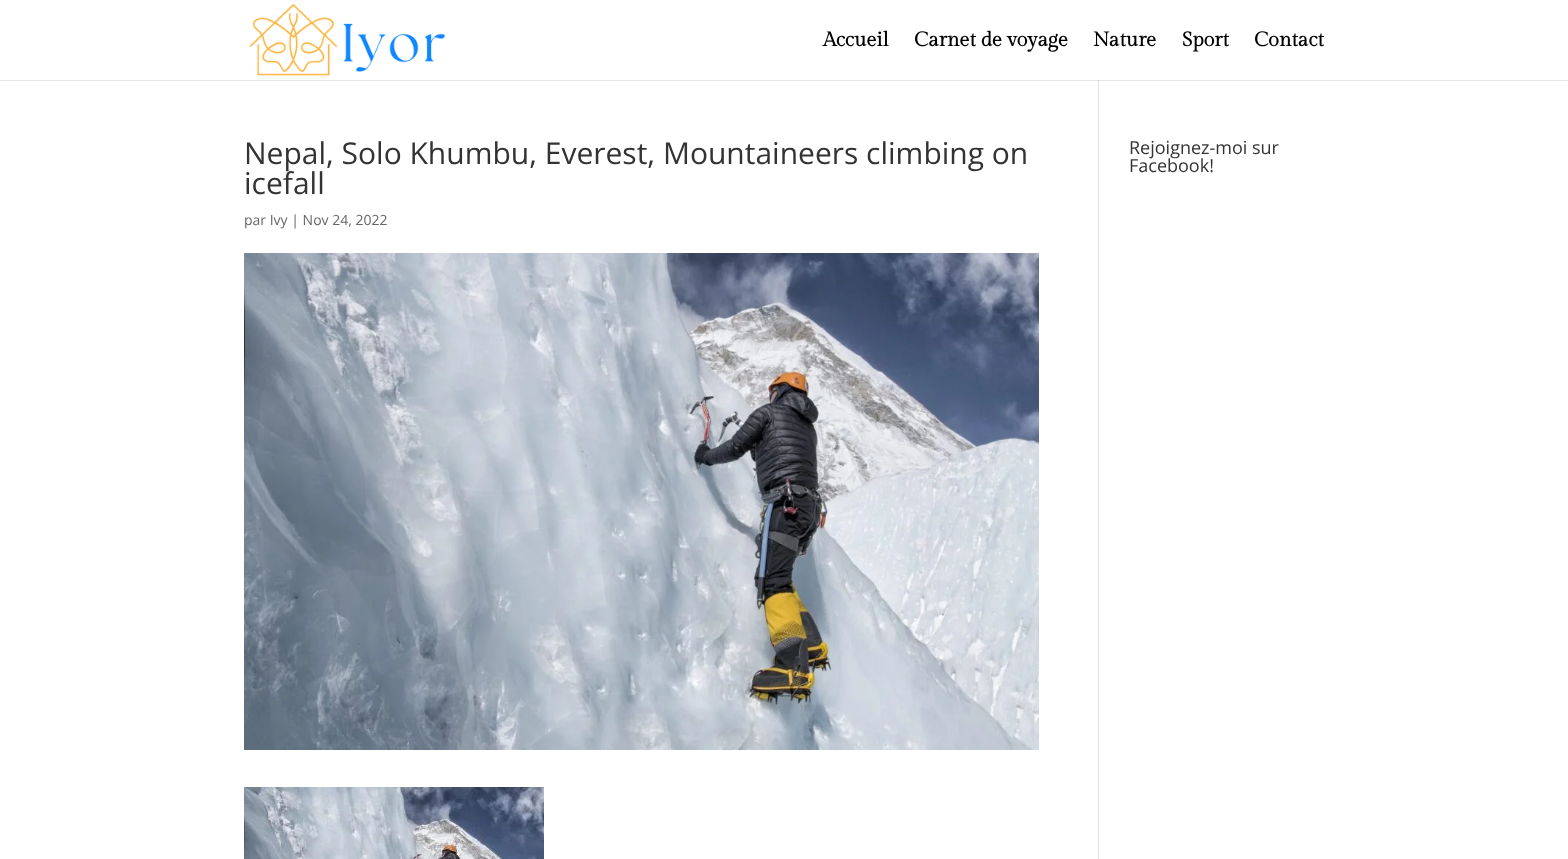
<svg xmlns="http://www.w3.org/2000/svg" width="1568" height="859">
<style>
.a{font:bold 20px Gilda Display;fill:#000}
.b{font:30px Open Sans;fill:#333}
.c{font:14px Open Sans;fill:#666}
.d{font:18px Open Sans;fill:#333}
</style>
<rect width="100%" height="100%" fill="#fff"/>
<path fill="#e6e6e6" d="M0 80h1568v1H0z"/>
<image href="1.png" x="249" y="4" width="196" height="72"/>
<path fill="#e2e2e2" d="M1098 80h1v779H1098z"/>
<path fill="#cbcbcb" d="M1098 80h1v1H1098z"/>
<image href="2.png" x="244" y="253" width="795" height="497"/>
<image href="3.png" x="244" y="787" width="300" height="72"/>
<text class="a" x="823" y="46">Accueil</text>
<text class="a" x="914" y="46">Carnet de voyage</text>
<text class="a" x="1093" y="46">Nature</text>
<text class="a" x="1182" y="46">Sport</text>
<text class="a" x="1254" y="46">Contact</text>
<text class="b" x="244" y="164">Nepal, Solo Khumbu, Everest, Mountaineers climbing on</text>
<text class="b" x="244" y="194">icefall</text>
<text class="c" x="244" y="225">par Ivy | Nov 24, 2022</text>
<text class="d" x="1129" y="154">Rejoignez-moi sur</text>
<text class="d" x="1129" y="172">Facebook!</text>
</svg>
